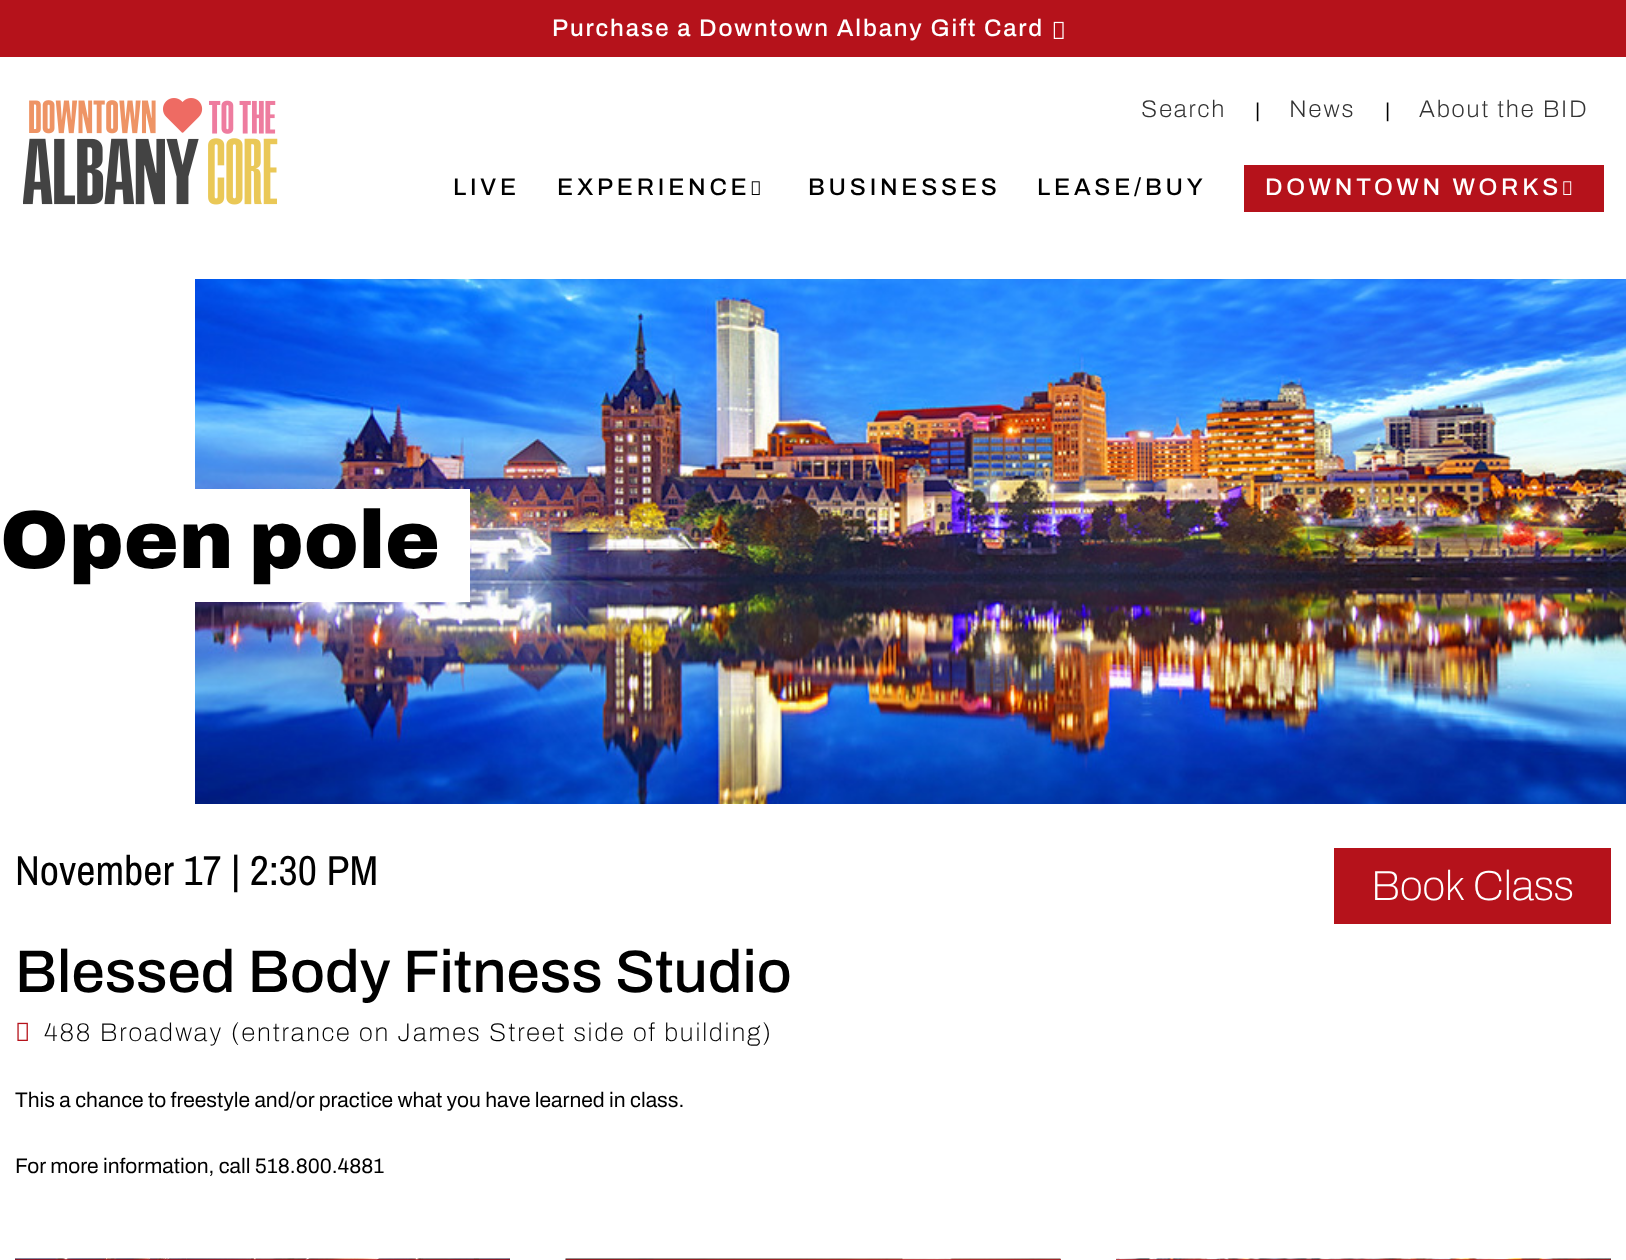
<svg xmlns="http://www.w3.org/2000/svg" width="1626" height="1260">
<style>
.a{font:500 24px Archivo;letter-spacing:1.88px;fill:#fff}
.b{font:200 24px Archivo;letter-spacing:1.88px;fill:#333}
.c{font:20px Liberation Sans;fill:#000}
.d{font:500 24px Archivo;letter-spacing:3.75px;fill:#000}
.e{font:500 24px Archivo;letter-spacing:3.75px;fill:#fff}
.f{font:900 82.5px Archivo;fill:#000}
.g{font:42px Archivo Narrow;fill:#000}
.h{font:100 42px Archivo;fill:#fff}
.i{font:500 60px Archivo;fill:#000}
.j{font:100 25.5px Archivo;letter-spacing:1.88px;fill:#000}
.k{font:21px Archivo;fill:#000}
</style>
<rect width="100%" height="100%" fill="#fff"/>
<path fill="#b5121b" d="M0 0h1626v57H0z"/>
<image href="1.png" x="1053" y="21" width="11" height="18"/>
<image href="2.png" x="23" y="98" width="255" height="107"/>
<image href="3.png" x="751" y="181" width="9" height="14"/>
<path fill="#b5121b" d="M1244 165h360v47H1244z"/>
<image href="4.png" x="1563" y="181" width="9" height="14"/>
<image href="5.png" x="195" y="279" width="1431" height="525"/>
<path fill="#fff" d="M195 489h275v113H195z"/>
<path fill="#b5121b" d="M1334 848h277v76H1334z"/>
<image href="6.png" x="17" y="1022" width="11" height="19"/>
<image href="7.png" x="15" y="1258" width="495" height="2"/>
<path fill="#b5121bbf" d="M15 1259h495v1H15z"/>
<image href="8.png" x="565" y="1258" width="496" height="2"/>
<path fill="#b5121bbf" d="M566 1259h495v1H566z"/>
<image href="9.png" x="1116" y="1258" width="495" height="2"/>
<path fill="#b5121bbf" d="M1116 1259h495v1H1116z"/>
<text class="a" x="552" y="36">Purchase a Downtown Albany Gift Card</text>
<text class="b" x="1141" y="117">Search</text>
<text class="c" x="1255" y="117">|</text>
<text class="b" x="1289" y="117">News</text>
<text class="c" x="1385" y="117">|</text>
<text class="b" x="1419" y="117">About the BID</text>
<text class="d" x="453" y="195">LIVE</text>
<text class="d" x="557" y="195">EXPERIENCE</text>
<text class="d" x="808" y="195">BUSINESSES</text>
<text class="d" x="1037" y="195">LEASE/BUY</text>
<text class="e" x="1265" y="195">DOWNTOWN WORKS</text>
<text class="f" x="0" y="568">Open pole</text>
<text class="g" x="15" y="885">November 17 | 2:30 PM</text>
<text class="h" x="1371" y="900">Book Class</text>
<text class="i" x="15" y="992">Blessed Body Fitness Studio</text>
<text class="j" x="44" y="1041">488 Broadway (entrance on James Street side of building)</text>
<text class="k" x="15" y="1107">This a chance to freestyle and/or practice what you have learned in class.</text>
<text class="k" x="15" y="1173">For more information, call 518.800.4881</text>
</svg>
